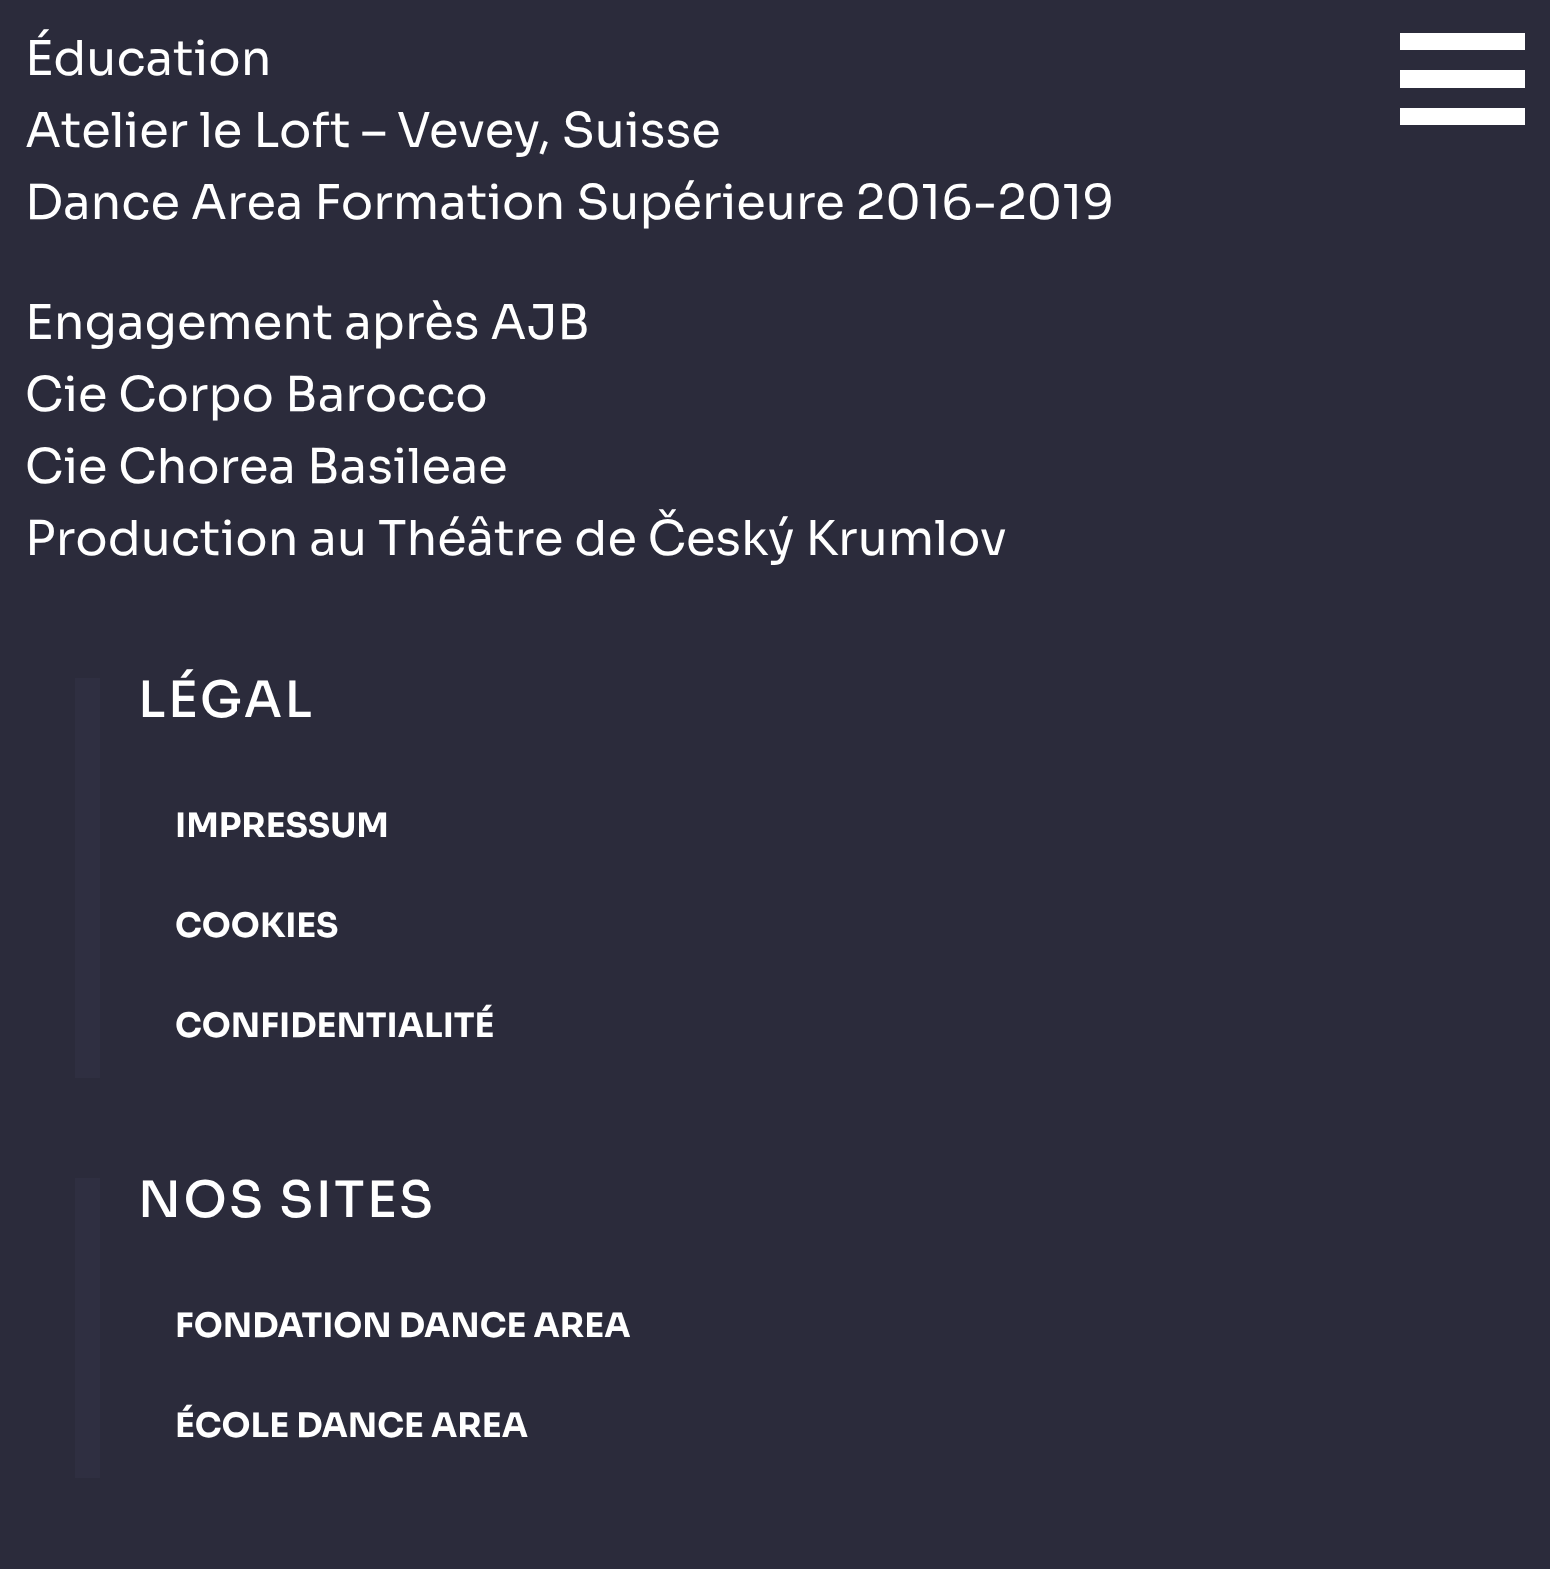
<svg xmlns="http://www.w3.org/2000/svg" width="1550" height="1569">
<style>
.a{font:48px Sora;fill:#fff}
.b{font:500 50px Sora;letter-spacing:2.5px;fill:#fff}
.c{font:bold 33.6px Sora;fill:#fff}
</style>
<rect width="100%" height="100%" fill="#2b2b3b"/>
<path fill="#fff" d="M1400 33h125v17H1400z"/>
<path fill="#fff" d="M1400 70h125v18H1400z"/>
<path fill="#fff" d="M1400 108h125v17H1400z"/>
<path fill="#2f2f41" d="M75 678h25v400H75z"/>
<path fill="#2f2f41" d="M75 1178h25v300H75z"/>
<text class="a" x="25" y="75">Éducation</text>
<text class="a" x="25" y="147">Atelier le Loft – Vevey, Suisse</text>
<text class="a" x="25" y="219">Dance Area Formation Supérieure 2016-2019</text>
<text class="a" x="25" y="339">Engagement après AJB</text>
<text class="a" x="25" y="411">Cie Corpo Barocco</text>
<text class="a" x="25" y="483">Cie Chorea Basileae</text>
<text class="a" x="25" y="555">Production au Théâtre de Český Krumlov</text>
<text class="b" x="138" y="717">LÉGAL</text>
<text class="c" x="175" y="837">IMPRESSUM</text>
<text class="c" x="175" y="937">COOKIES</text>
<text class="c" x="175" y="1037">CONFIDENTIALITÉ</text>
<text class="b" x="138" y="1217">NOS SITES</text>
<text class="c" x="175" y="1337">FONDATION DANCE AREA</text>
<text class="c" x="175" y="1437">ÉCOLE DANCE AREA</text>
</svg>
